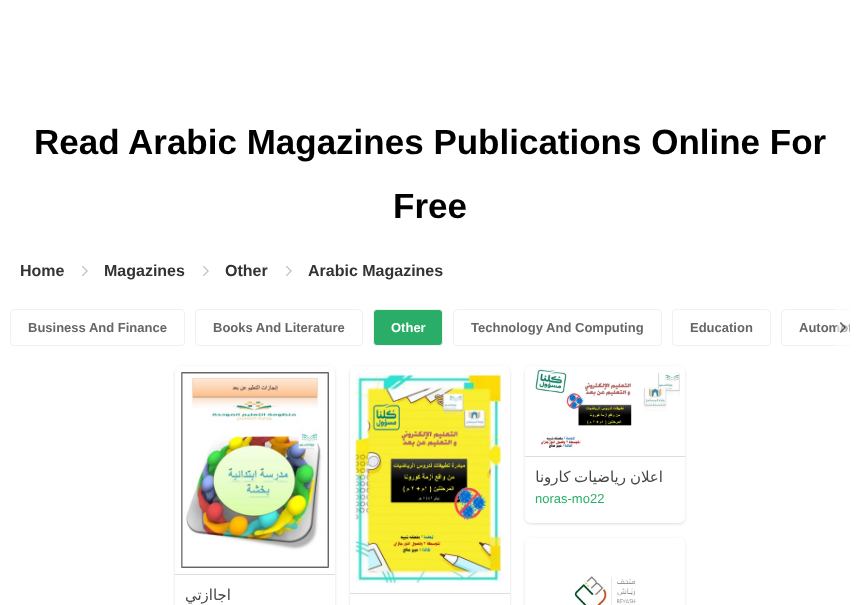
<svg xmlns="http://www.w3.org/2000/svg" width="860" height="605">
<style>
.a{font:bold 35px Liberation Sans;fill:#000}
.b{font:bold 16px Liberation Sans;fill:#333}
.c{font:bold 13px Liberation Sans;fill:#666}
.d{font:bold 13px Liberation Sans;fill:#fff}
.e{font:15px DejaVu Sans;direction:rtl;fill:#474747}
.f{font:13px Liberation Sans;fill:#2aae67}
</style>
<defs>
<clipPath id="clip1"><path d="M10 309h840v37H10z"/></clipPath>
<clipPath id="clip2"><path d="M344 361h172v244h-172zm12 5h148c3.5 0 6 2.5 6 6v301c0 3.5-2.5 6-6 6h-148c-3.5 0-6-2.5-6-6v-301c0-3.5 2.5-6 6-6z" clip-rule="evenodd"/></clipPath>
<clipPath id="clip3"><path d="M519 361h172v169h-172zm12 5h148c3.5 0 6 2.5 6 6v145c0 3.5-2.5 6-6 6h-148c-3.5 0-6-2.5-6-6v-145c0-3.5 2.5-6 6-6z" clip-rule="evenodd"/></clipPath>
<clipPath id="clip4"><path d="M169 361h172v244h-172zm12 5h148c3.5 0 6 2.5 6 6v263c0 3.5-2.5 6-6 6h-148c-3.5 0-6-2.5-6-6v-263c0-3.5 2.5-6 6-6z" clip-rule="evenodd"/></clipPath>
<clipPath id="clip5"><path d="M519 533h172v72h-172zm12 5h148c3.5 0 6 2.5 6 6v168c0 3.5-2.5 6-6 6h-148c-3.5 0-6-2.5-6-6v-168c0-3.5 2.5-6 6-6z" clip-rule="evenodd"/></clipPath>
<linearGradient id="g1" gradientUnits="userSpaceOnUse" x1="837" y1="328" x2="850" y2="328"><stop offset="0" stop-color="#fff" stop-opacity="0.7"/><stop offset="1" stop-color="#fff" stop-opacity="0.4"/></linearGradient>
</defs>
<rect width="100%" height="100%" fill="#fff"/>
<image href="1.png" x="82" y="266" width="6" height="10"/>
<image href="1.png" x="203" y="266" width="6" height="10"/>
<image href="1.png" x="286" y="266" width="6" height="10"/>
<rect fill="none" stroke="#f1f1f1" x="10.5" y="309.5" width="174" height="36" rx="3.5"/>
<rect fill="none" stroke="#f1f1f1" x="195.5" y="309.5" width="167" height="36" rx="3.5"/>
<rect fill="#2aae67" stroke="#f1f1f1" x="373.5" y="309.5" width="69" height="36" rx="3.5"/>
<rect fill="none" stroke="#f1f1f1" x="453.5" y="309.5" width="208" height="36" rx="3.5"/>
<rect fill="none" stroke="#f1f1f1" x="672.5" y="309.5" width="98" height="36" rx="3.5"/>
<g clip-path="url(#clip1)">
<rect fill="none" stroke="#f1f1f1" x="781.5" y="309.5" width="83" height="36" rx="3.5"/>
</g>
<g clip-path="url(#clip2)">
<rect fill="#ddd" filter="blur(1.5px)" x="350" y="367" width="160" height="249" rx="6"/>
</g>
<image href="3.png" x="350" y="373" width="152" height="211"/>
<path fill="#ddd" d="M350 593h160v1H350z"/>
<g clip-path="url(#clip3)">
<rect fill="#ddd" filter="blur(1.5px)" x="525" y="367" width="160" height="157" rx="6"/>
</g>
<image href="4.png" x="535" y="368" width="145" height="83"/>
<path fill="#ddd" d="M525 456h160v1H525z"/>
<g clip-path="url(#clip4)">
<rect fill="#ddd" filter="blur(1.5px)" x="175" y="367" width="160" height="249" rx="6"/>
</g>
<image href="5.png" x="181" y="372" width="148" height="196"/>
<path fill="#ddd" d="M175 574h160v1H175z"/>
<g clip-path="url(#clip5)">
<rect fill="#ddd" filter="blur(1.5px)" x="525" y="539" width="160" height="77" rx="6"/>
</g>
<image href="6.png" x="573" y="576" width="63" height="29"/>
<text class="a" x="34" y="154">Read</text>
<text class="a" x="128" y="154">Arabic Magazines Publications Online For</text>
<text class="a" x="393" y="218">Free</text>
<text class="b" x="20" y="276">Home</text>
<text class="b" x="104" y="276">Magazines</text>
<text class="b" x="225" y="276">Other</text>
<text class="b" x="308" y="276">Arabic Magazines</text>
<text class="c" x="28" y="332">Business And Finance</text>
<text class="c" x="213" y="332">Books And Literature</text>
<text class="d" x="391" y="332">Other</text>
<text class="c" x="471" y="332">Technology And Computing</text>
<text class="c" x="690" y="332">Education</text>
<g clip-path="url(#clip1)">
<text class="c" x="799" y="332">Automot</text>
</g>
<path fill="url(#g1)" d="M837 309h13v37H837z"/>
<image href="2.png" x="840" y="322" width="6" height="11"/>
<text class="e" x="626" y="482" word-spacing="-1">رياضيات كارونا</text>
<text class="e" x="663" y="482">اعلان</text>
<text class="f" x="535" y="503">noras-mo22</text>
<text class="e" x="231" y="600">اجاازتي</text>
</svg>
